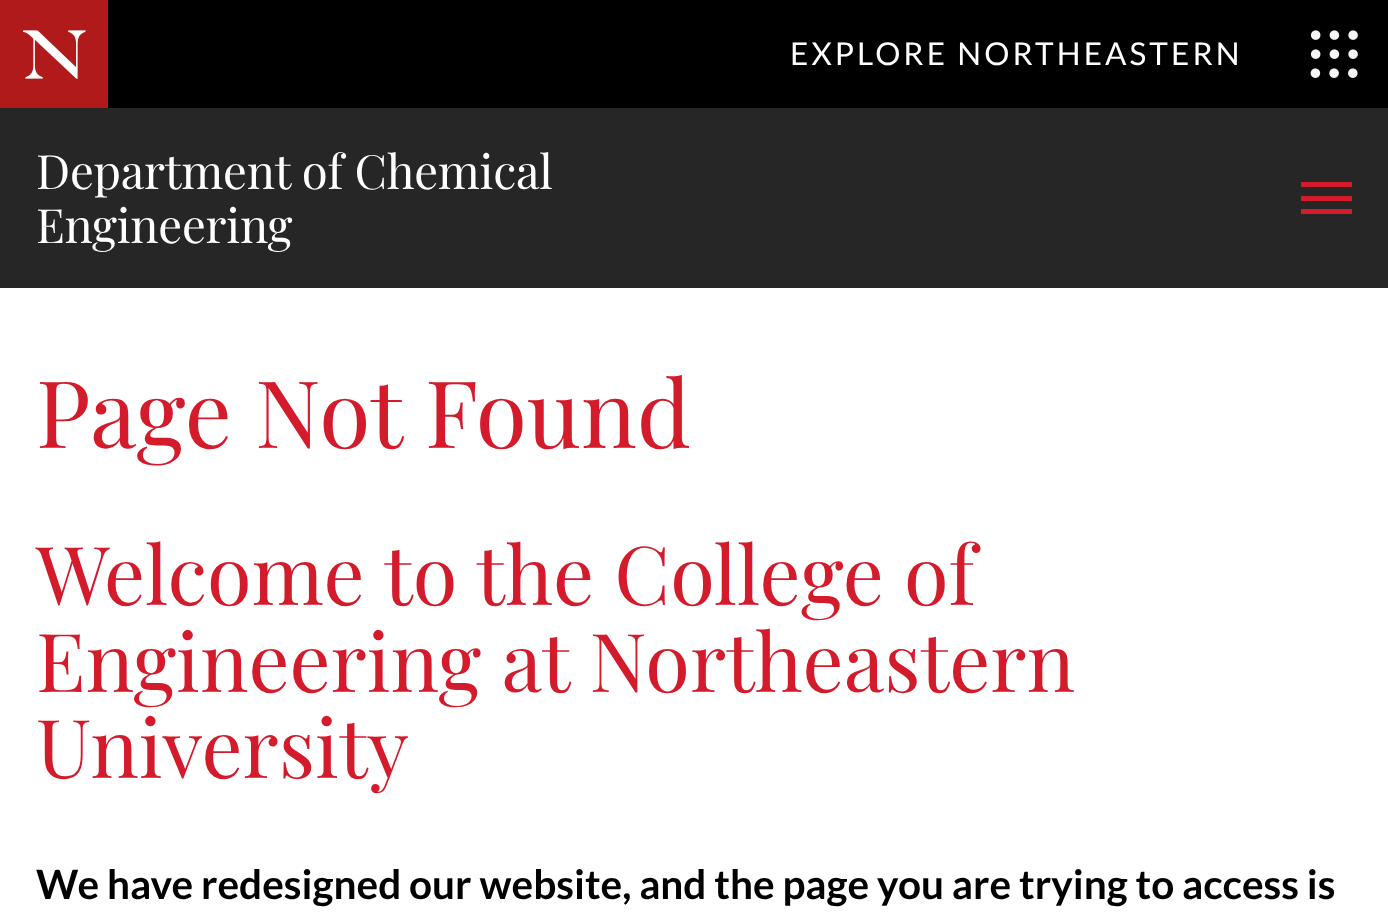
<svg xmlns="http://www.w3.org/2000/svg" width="1388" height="916">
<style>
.a{font:31.5px Lato;letter-spacing:3.1px;fill:#fff}
.b{font:47.25px Playfair Display;letter-spacing:-0.25px;fill:#fff}
.c{font:93.25px Playfair Display;fill:#d41b2c}
.d{font:81.25px Playfair Display;fill:#d41b2c}
.e{font:bold 40.5px Lato;fill:#000}
</style>
<rect width="100%" height="100%" fill="#fff"/>
<path fill="#000" d="M108 0h1280v108H108z"/>
<path fill="#b01a1b" d="M0 0h108v108H0z"/>
<image href="1.png" x="23" y="30" width="63" height="49"/>
<image href="2.png" x="1310" y="30" width="48" height="48"/>
<path fill="#262626" d="M0 108h1388v180H0z"/>
<path fill="#d41b2c" d="M1301 182h51v5H1301z"/>
<path fill="#d41b2c" d="M1301 196h51v5H1301z"/>
<path fill="#d41b2c" d="M1301 209h51v5H1301z"/>
<text class="a" x="790" y="65">EXPLORE NORTHEASTERN</text>
<text class="b" x="36" y="189">Department of Chemical</text>
<text class="b" x="36" y="243">Engineering</text>
<text class="c" x="36" y="448">Page Not Found</text>
<text class="d" x="36" y="605">Welcome to the College of</text>
<text class="d" x="36" y="692">Engineering at Northeastern</text>
<text class="d" x="36" y="778">University</text>
<text class="e" x="36" y="899">We have redesigned our website, and the page you are trying to access is</text>
</svg>
